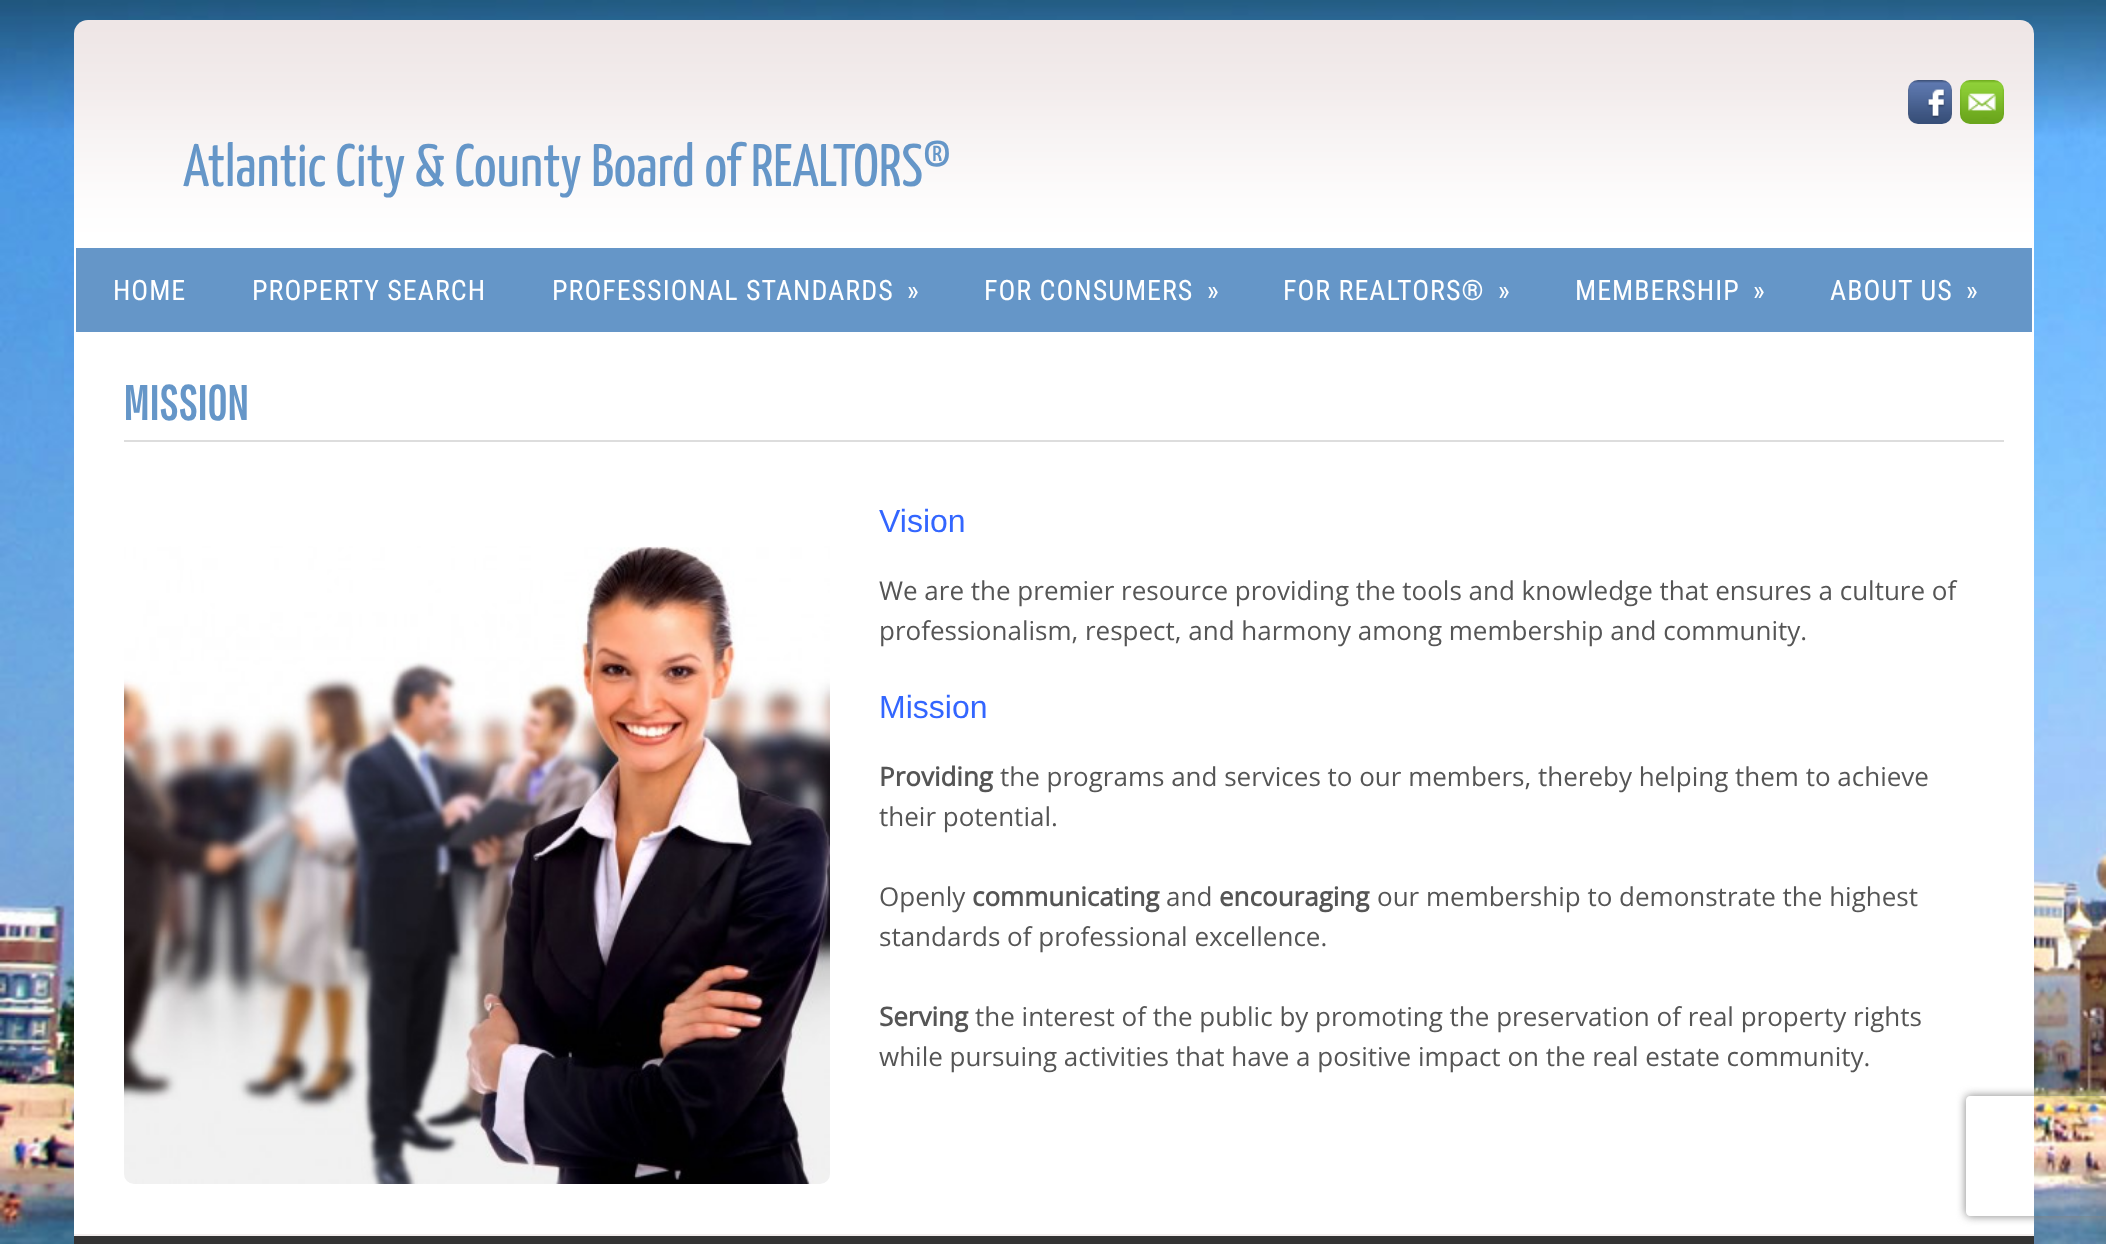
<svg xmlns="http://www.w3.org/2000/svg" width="2106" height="1244">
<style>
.a{font:200 60px Yanone Kaffeesatz;fill:#6596c8}
.b{font:28px Roboto Condensed;letter-spacing:1px;fill:#fff}
.c{font:bold 48px Pathway Gothic One;fill:#6596c8}
.d{font:32px Liberation Sans;fill:#36f}
.e{font:26px Open Sans;fill:#555}
.f{font:bold 26px Open Sans;fill:#555}
</style>
<defs>
<clipPath id="clip1"><path d="M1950 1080h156v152h-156zm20 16h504c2 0 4 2 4 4v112c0 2-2 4-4 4h-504c-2 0-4-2-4-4v-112c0-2 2-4 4-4z" clip-rule="evenodd"/></clipPath>
</defs>
<rect width="100%" height="100%" fill="#fff"/>
<image href="1.png" x="0" y="0" width="2106" height="1244"/>
<image href="2.png" x="74" y="20" width="1960" height="226"/>
<image href="3.png" x="1908" y="80" width="44" height="44"/>
<image href="4.png" x="1960" y="80" width="44" height="44"/>
<path fill="#6596c8" stroke="#fff" stroke-width="2" d="M75 247h1958v86H75z"/>
<path fill="#fff" d="M74 334h1960v900H74z"/>
<path fill="#ddd" d="M124 440h1880v2H124z"/>
<image href="5.png" x="124" y="546" width="706" height="638"/>
<path fill="#333" d="M74 1236h1960v8H74z"/>
<path fill="#f4efef" d="M74 1234h1960v2H74z"/>
<g clip-path="url(#clip1)">
<rect fill="#808080" filter="blur(5px)" x="1966" y="1096" width="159" height="120" rx="4"/>
</g>
<text class="a" x="183" y="186">Atlantic City &amp; County Board of REALTORS®</text>
<text class="b" x="113" y="300">HOME</text>
<text class="b" x="252" y="300">PROPERTY SEARCH</text>
<text class="b" x="552" y="300">PROFESSIONAL STANDARDS</text>
<text class="b" x="907" y="300">»</text>
<text class="b" x="984" y="300">FOR CONSUMERS</text>
<text class="b" x="1207" y="300">»</text>
<text class="b" x="1283" y="300">FOR REALTORS®</text>
<text class="b" x="1498" y="300">»</text>
<text class="b" x="1575" y="300">MEMBERSHIP</text>
<text class="b" x="1753" y="300">»</text>
<text class="b" x="1830" y="300">ABOUT US</text>
<text class="b" x="1966" y="300">»</text>
<text class="c" x="123" y="420">MISSION</text>
<text class="d" x="879" y="532">Vision</text>
<text class="e" x="879" y="600">We are the premier resource providing the tools and knowledge that ensures a culture of</text>
<text class="e" x="879" y="640">professionalism, respect, and harmony among membership and community.</text>
<text class="d" x="879" y="718">Mission</text>
<text class="f" x="879" y="786">Providing</text>
<text class="e" x="1000" y="786">the programs and services to our members, thereby helping them to achieve</text>
<text class="e" x="879" y="826">their potential.</text>
<text class="e" x="879" y="906">Openly</text>
<text class="f" x="972" y="906">communicating</text>
<text class="e" x="1166" y="906">and</text>
<text class="f" x="1219" y="906">encouraging</text>
<text class="e" x="1377" y="906">our membership to demonstrate the highest</text>
<text class="e" x="879" y="946">standards of professional excellence.</text>
<text class="f" x="879" y="1026">Serving</text>
<text class="e" x="975" y="1026">the interest of the public by promoting the preservation of real property rights</text>
<text class="e" x="879" y="1066">while pursuing activities that have a positive impact on the real estate community.</text>
</svg>
